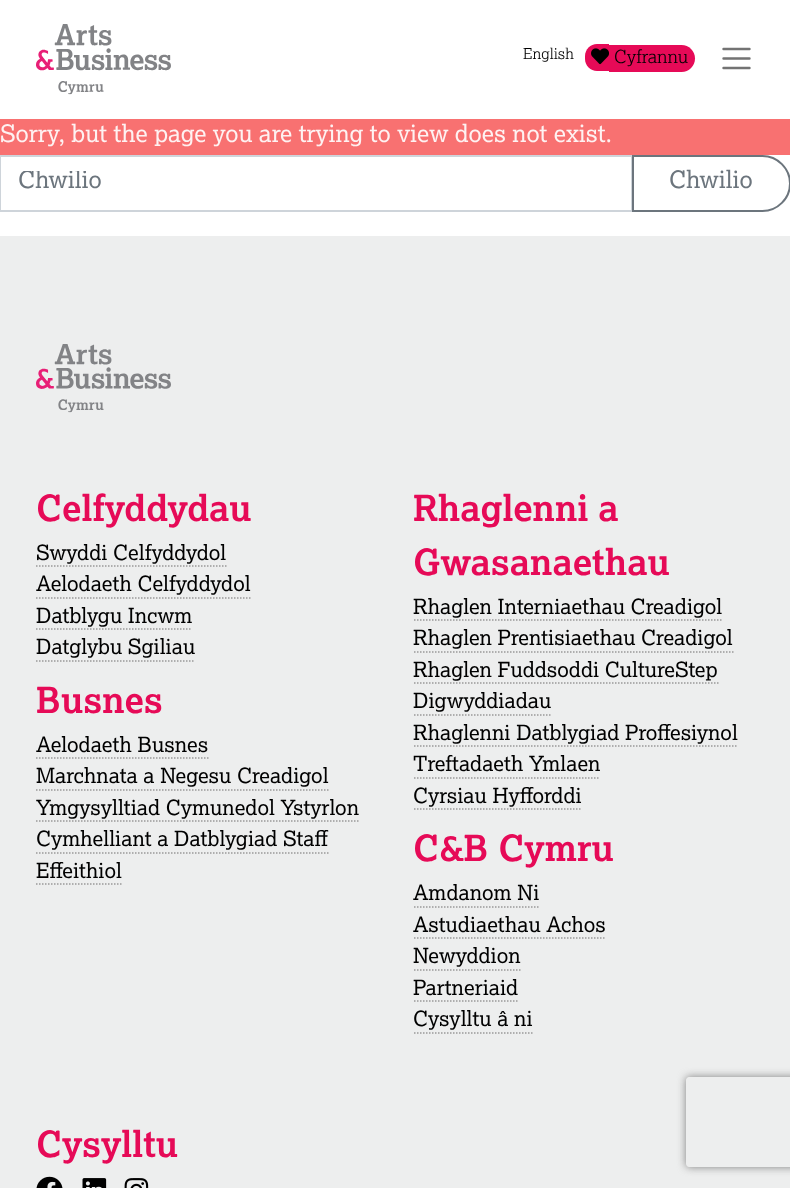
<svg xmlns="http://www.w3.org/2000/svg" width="790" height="1188">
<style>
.a{font:300 15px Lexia;fill:#000}
.b{font:300 18px Lexia;fill:#000}
.c{font:24px Lexia;fill:#fef2f2}
.d{font:24px Lexia;fill:#6c757d}
.e{font:bold 36px Lexia;fill:#e60a57}
.f{font:21px Lexia;fill:#000}
</style>
<defs>
<clipPath id="clip1"><path d="M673 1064h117v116h-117zm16 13h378c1.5 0 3 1.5 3 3v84c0 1.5-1.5 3-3 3h-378c-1.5 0-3-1.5-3-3v-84c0-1.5 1.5-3 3-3z" clip-rule="evenodd"/></clipPath>
<clipPath id="clip2"><path d="M18 171h573v24H18z"/></clipPath>
</defs>
<rect width="100%" height="100%" fill="#fff"/>
<image href="1.png" x="36" y="24" width="135" height="71"/>
<path fill="#e60a57" d="M597 44h12v27h-12c-6.5 0-12-5.5-12-12v-3c0-6.5 5.5-12 12-12z"/>
<path fill="#e60a57" d="M609 45h72.5c7.5 0 13.5 6 13.5 13.5c0 7.5-6 13.5-13.5 13.5h-72.5z"/>
<image href="2.png" x="591" y="48" width="18" height="17"/>
<path fill="none" stroke="#737373" stroke-width="2.4" stroke-linecap="round" d="M723.5 49h26m-26 9.5h26m-26 9.5h26"/>
<path fill="#f87171" d="M0 119h790v36H0z"/>
<path fill="none" stroke="#ced4da" stroke-width="2" d="M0 156h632v55H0z"/>
<path fill="none" stroke="#6c757d" stroke-width="2" d="M633 156h129.5c15 0 27.5 12.5 27.5 27.5c0 15-12.5 27.5-27.5 27.5h-129.5z"/>
<path fill="#edeeee" d="M0 236h790v952H0z"/>
<image href="3.png" x="36" y="344" width="135" height="69"/>
<path fill="none" stroke="#999" stroke-width="1.5" stroke-dasharray="1.5 1.5" d="M36 566h190.5"/>
<path fill="none" stroke="#999" stroke-width="1.5" stroke-dasharray="1.5 1.5" d="M36 598h214.5"/>
<path fill="none" stroke="#999" stroke-width="1.5" stroke-dasharray="1.5 1.5" d="M36 629h156"/>
<path fill="none" stroke="#999" stroke-width="1.5" stroke-dasharray="1.5 1.5" d="M36 661h159"/>
<path fill="none" stroke="#999" stroke-width="1.5" stroke-dasharray="1.5 1.5" d="M36 758h172.5"/>
<path fill="none" stroke="#999" stroke-width="1.5" stroke-dasharray="1.5 1.5" d="M36 790h292.5"/>
<path fill="none" stroke="#999" stroke-width="1.5" stroke-dasharray="1.5 1.5" d="M36 821h322.5"/>
<path fill="none" stroke="#999" stroke-width="1.5" stroke-dasharray="1.5 1.5" d="M36 853h292.5"/>
<path fill="none" stroke="#999" stroke-width="1.5" stroke-dasharray="1.5 1.5" d="M36 884h85.5"/>
<path fill="none" stroke="#999" stroke-width="1.5" stroke-dasharray="1.5 1.5" d="M414 620h309"/>
<path fill="none" stroke="#999" stroke-width="1.5" stroke-dasharray="1.5 1.5" d="M414 652h319.5"/>
<path fill="none" stroke="#999" stroke-width="1.5" stroke-dasharray="1.5 1.5" d="M414 683h304.5"/>
<path fill="none" stroke="#999" stroke-width="1.5" stroke-dasharray="1.5 1.5" d="M414 715h138"/>
<path fill="none" stroke="#999" stroke-width="1.5" stroke-dasharray="1.5 1.5" d="M414 746h324"/>
<path fill="none" stroke="#999" stroke-width="1.5" stroke-dasharray="1.5 1.5" d="M414 778h186"/>
<path fill="none" stroke="#999" stroke-width="1.5" stroke-dasharray="1.5 1.5" d="M414 809h168"/>
<path fill="none" stroke="#999" stroke-width="1.5" stroke-dasharray="1.5 1.5" d="M414 907h126"/>
<path fill="none" stroke="#999" stroke-width="1.5" stroke-dasharray="1.5 1.5" d="M414 938h192"/>
<path fill="none" stroke="#999" stroke-width="1.5" stroke-dasharray="1.5 1.5" d="M414 970h106.5"/>
<path fill="none" stroke="#999" stroke-width="1.5" stroke-dasharray="1.5 1.5" d="M414 1001h105"/>
<path fill="none" stroke="#999" stroke-width="1.5" stroke-dasharray="1.5 1.5" d="M414 1033h118.5"/>
<image href="4.png" x="36" y="1176" width="27" height="12"/>
<image href="5.png" x="82" y="1178" width="25" height="10"/>
<image href="6.png" x="124" y="1178" width="25" height="10"/>
<g clip-path="url(#clip1)">
<rect fill="#808080" filter="blur(4px)" x="686" y="1077" width="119" height="90" rx="3"/>
</g>
<text class="a" x="523" y="59">English</text>
<text class="b" x="614" y="63">Cyfrannu</text>
<text class="c" x="0" y="142">Sorry, but the page you are trying to view does not exist.</text>
<g clip-path="url(#clip2)">
<text class="d" x="18" y="188">Chwilio</text>
</g>
<text class="d" x="669" y="188">Chwilio</text>
<text class="e" x="36" y="521">Celfyddydau</text>
<text class="f" x="36" y="560">Swyddi Celfyddydol</text>
<text class="f" x="36" y="591">Aelodaeth Celfyddydol</text>
<text class="f" x="36" y="623">Datblygu Incwm</text>
<text class="f" x="36" y="654">Datglybu Sgiliau</text>
<text class="e" x="36" y="713">Busnes</text>
<text class="f" x="36" y="752">Aelodaeth Busnes</text>
<text class="f" x="36" y="783">Marchnata a Negesu Creadigol</text>
<text class="f" x="36" y="815">Ymgysylltiad Cymunedol Ystyrlon</text>
<text class="f" x="36" y="846">Cymhelliant a Datblygiad Staff</text>
<text class="f" x="36" y="878">Effeithiol</text>
<text class="e" x="413" y="521">Rhaglenni a</text>
<text class="e" x="413" y="575">Gwasanaethau</text>
<text class="f" x="413" y="614">Rhaglen Interniaethau Creadigol</text>
<text class="f" x="413" y="645">Rhaglen Prentisiaethau Creadigol</text>
<text class="f" x="413" y="677">Rhaglen Fuddsoddi CultureStep</text>
<text class="f" x="413" y="708">Digwyddiadau</text>
<text class="f" x="413" y="740">Rhaglenni Datblygiad Proffesiynol</text>
<text class="f" x="413" y="771">Treftadaeth Ymlaen</text>
<text class="f" x="413" y="803">Cyrsiau Hyfforddi</text>
<text class="e" x="413" y="861">C&amp;B Cymru</text>
<text class="f" x="413" y="900">Amdanom Ni</text>
<text class="f" x="413" y="932">Astudiaethau Achos</text>
<text class="f" x="413" y="963">Newyddion</text>
<text class="f" x="413" y="995">Partneriaid</text>
<text class="f" x="413" y="1026">Cysylltu â ni</text>
<text class="e" x="36" y="1157">Cysylltu</text>
</svg>
